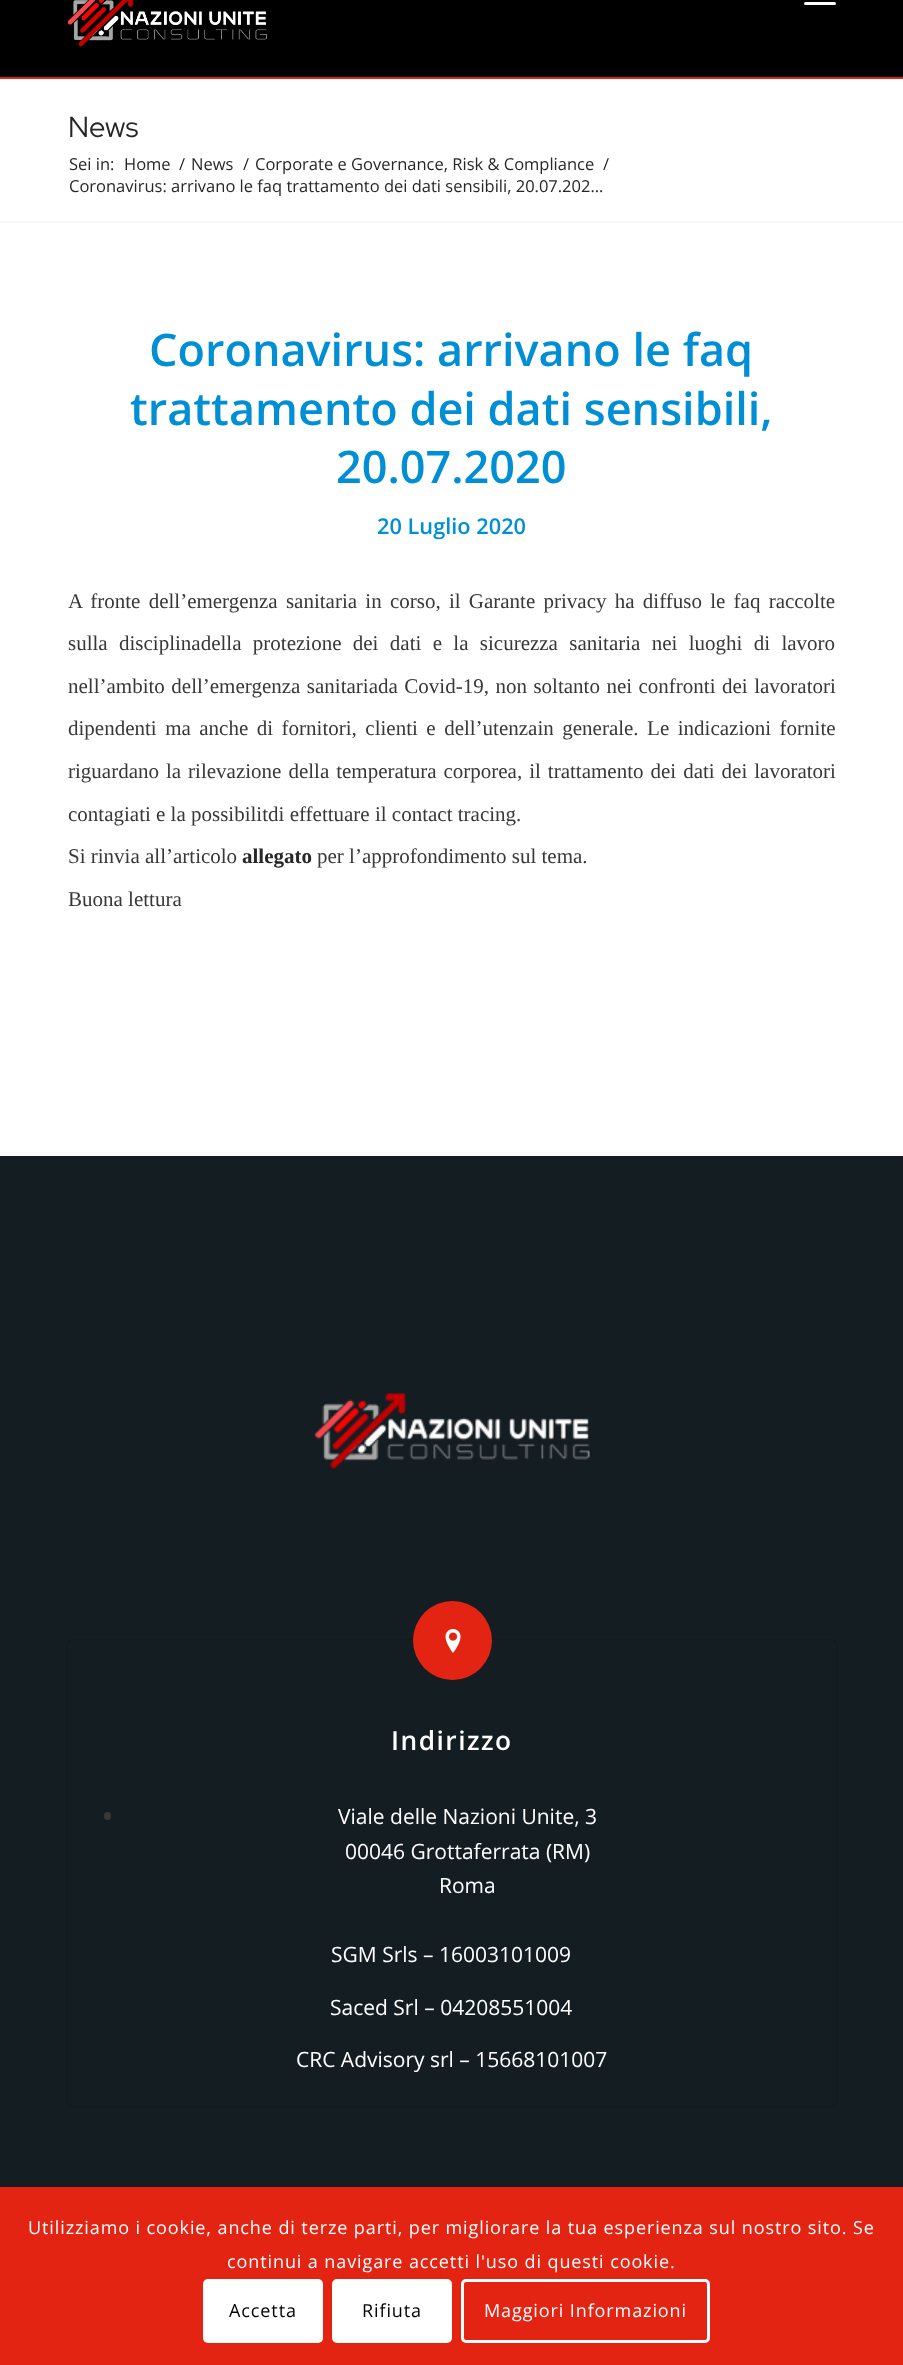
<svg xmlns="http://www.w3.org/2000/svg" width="903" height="2365">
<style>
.a{font:29px Red Hat Display;fill:#282626}
.b{font:16.5px Open Sans;fill:#282626}
.c{font:600 45px Open Sans;fill:#008fd5}
.d{font:600 21.75px Open Sans;fill:#008fd5}
.e{font:21px Liberation Serif;fill:#383838}
.f{font:bold 21px Liberation Serif;fill:#282626}
.g{font:600 26.25px Open Sans;letter-spacing:1.5px;fill:#fff}
.h{font:21px Open Sans;fill:#fff}
.i{font:18px Open Sans;letter-spacing:0.9px;fill:#fff}
.j{font:18px Open Sans;letter-spacing:0.9px;fill:#000}
</style>
<rect width="100%" height="100%" fill="#fff"/>
<path fill="#000" d="M0 0h903v77H0z"/>
<path fill="#e42413" d="M0 77h903v2H0z"/>
<image href="1.png" x="67" y="0" width="200" height="47"/>
<rect fill="#fff" x="804" y="2" width="32" height="3" rx="1.5"/>
<path fill="#f8f8f8" d="M0 221h903v2H0z"/>
<path fill="#fcfcfc" d="M0 1152h903v4H0z"/>
<path fill="#141d22" d="M0 1156h903v1031H0z"/>
<image href="2.png" x="314" y="1393" width="276" height="76"/>
<rect fill="#0000004d" filter="blur(1px)" x="68" y="1640" width="768" height="466" rx="5"/>
<rect fill="#141d22" x="68" y="1640" width="768" height="466" rx="5"/>
<circle fill="#e42413" cx="452.5" cy="1640.5" r="39.5"/>
<image href="3.png" x="445" y="1629" width="16" height="24"/>
<rect fill="#383838" x="104" y="1812" width="7" height="8" rx="3.5"/>
<path fill="#e42413" d="M0 2187h903v178H0z"/>
<rect fill="#fff" x="203" y="2279" width="120" height="64" rx="5"/>
<rect fill="#fff" stroke="#fff" stroke-width="3" x="333.5" y="2280.5" width="117" height="61" rx="3.5"/>
<rect fill="none" stroke="#fff" stroke-width="3" x="462.5" y="2280.5" width="246" height="61" rx="3.5"/>
<text class="a" x="68" y="137">News</text>
<text class="b" x="69" y="170">Sei in:</text>
<text class="b" x="124" y="170">Home</text>
<text class="b" x="179" y="170">/</text>
<text class="b" x="191" y="170">News</text>
<text class="b" x="243" y="170">/</text>
<text class="b" x="255" y="170">Corporate e Governance, Risk &amp; Compliance</text>
<text class="b" x="603" y="170">/</text>
<text class="b" x="69" y="192">Coronavirus: arrivano le faq trattamento dei dati sensibili, 20.07.202...</text>
<text class="c" x="149" y="366">Coronavirus: arrivano le faq</text>
<text class="c" x="130" y="425">trattamento dei dati sensibili,</text>
<text class="c" x="336" y="483">20.07.2020</text>
<text class="d" x="377" y="534">20 Luglio 2020</text>
<text class="e" x="68" y="608" word-spacing="3">A fronte dell’emergenza sanitaria in corso, il Garante privacy ha diffuso le faq raccolte</text>
<text class="e" x="68" y="650" word-spacing="6.1">sulla disciplinadella protezione dei dati e la sicurezza sanitaria nei luoghi di lavoro</text>
<text class="e" x="68" y="693" word-spacing="1.25">nell’ambito dell’emergenza sanitariada Covid-19, non soltanto nei confronti dei lavoratori</text>
<text class="e" x="68" y="735" word-spacing="3.25">dipendenti ma anche di fornitori, clienti e dell’utenzain generale. Le indicazioni fornite</text>
<text class="e" x="68" y="778" word-spacing="1.75">riguardano la rilevazione della temperatura corporea, il trattamento dei dati dei lavoratori</text>
<text class="e" x="68" y="821">contagiati e la possibilitdi effettuare il contact tracing.</text>
<text class="e" x="68" y="863">Si rinvia all’articolo</text>
<text class="f" x="242" y="863">allegato</text>
<text class="e" x="317" y="863">per l’approfondimento sul tema.</text>
<text class="e" x="68" y="906">Buona lettura</text>
<text class="g" x="391" y="1750">Indirizzo</text>
<text class="h" x="338" y="1824">Viale delle Nazioni Unite, 3</text>
<text class="h" x="345" y="1859">00046 Grottaferrata (RM)</text>
<text class="h" x="439" y="1893">Roma</text>
<text class="h" x="331" y="1962">SGM Srls – 16003101009</text>
<text class="h" x="330" y="2015">Saced Srl – 04208551004</text>
<text class="h" x="296" y="2067">CRC Advisory srl – 15668101007</text>
<text class="i" x="28" y="2234">Utilizziamo i cookie, anche di terze parti, per migliorare la tua esperienza sul nostro sito. Se</text>
<text class="i" x="227" y="2268">continui a navigare accetti l'uso di questi cookie.</text>
<text class="j" x="229" y="2317">Accetta</text>
<text class="j" x="362" y="2317">Rifiuta</text>
<text class="i" x="484" y="2317">Maggiori Informazioni</text>
</svg>
